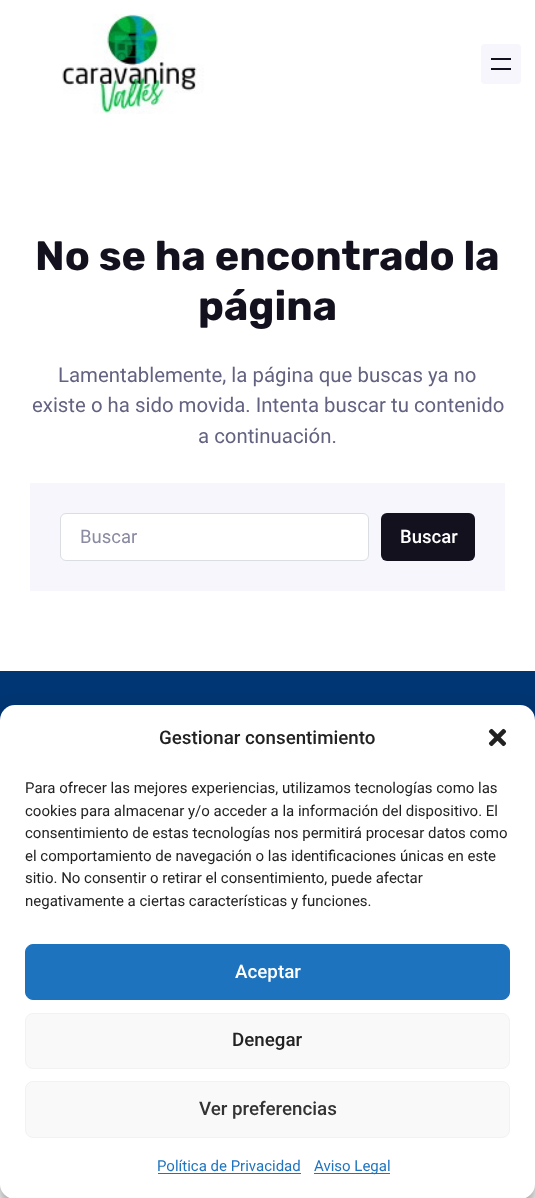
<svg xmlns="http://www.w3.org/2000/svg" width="535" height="1198">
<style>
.a{font:bold 41.25px Rubik;fill:#14111f}
.b{font:20.4px Roboto;fill:#636381}
.c{font:18.5px Roboto;fill:#8a8aa1}
.d{font:500 18.5px Roboto;fill:#fff}
.e{font:500 18.75px Roboto;fill:#222}
.f{font:15px Roboto;fill:#222}
.g{font:500 18.75px Roboto;fill:#fff}
.h{font:500 18.75px Roboto;fill:#333}
.i{font:15px Roboto;fill:#1e73be}
</style>
<rect width="100%" height="100%" fill="#fff"/>
<image href="1.png" x="61" y="14" width="143" height="100"/>
<rect fill="#f6f6fc" x="481" y="44" width="40" height="40" rx="4"/>
<path fill="#14111f" d="M491 58h20v2H491z"/>
<path fill="#14111f" d="M491 68h20v2H491z"/>
<path fill="#f6f6fc" d="M30 483h475v108H30z"/>
<rect fill="#fff" stroke="#dadee3" x="60.5" y="513.5" width="308" height="47" rx="5.5"/>
<rect fill="#14111f" x="381" y="513" width="94" height="48" rx="6"/>
<path fill="#003673" d="M0 671h535v49H0z"/>
<rect fill="#0000003b" filter="blur(4px)" y="713" width="535" height="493" rx="15"/>
<rect fill="#00000030" filter="blur(12.5px)" y="718" width="535" height="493" rx="15"/>
<rect fill="#fff" y="705" width="535" height="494" rx="15"/>
<image href="2.png" x="488" y="728" width="19" height="19"/>
<rect fill="#1e73be" stroke="#1e73be" x="25.5" y="944.5" width="484" height="55" rx="7.5"/>
<rect fill="#f9f9f9" stroke="#f2f2f2" x="25.5" y="1013.5" width="484" height="55" rx="7.5"/>
<rect fill="#f9f9f9" stroke="#f2f2f2" x="25.5" y="1081.5" width="484" height="56" rx="7.5"/>
<path fill="#1e73be" d="M158 1173h143v1H158z"/>
<path fill="#1e73be" d="M314 1173h76v1H314z"/>
<text class="a" x="35" y="270">No se ha encontrado la</text>
<text class="a" x="198" y="320">página</text>
<text class="b" x="58" y="382">Lamentablemente, la página que buscas ya no</text>
<text class="b" x="32" y="412">existe o ha sido movida. Intenta buscar tu contenido</text>
<text class="b" x="198" y="443">a continuación.</text>
<text class="c" x="80" y="543">Buscar</text>
<text class="d" x="400" y="543">Buscar</text>
<text class="e" x="159" y="744">Gestionar consentimiento</text>
<text class="f" x="25" y="793">Para ofrecer las mejores experiencias, utilizamos tecnologías como las</text>
<text class="f" x="25" y="816">cookies para almacenar y/o acceder a la información del dispositivo. El</text>
<text class="f" x="25" y="838">consentimiento de estas tecnologías nos permitirá procesar datos como</text>
<text class="f" x="25" y="861">el comportamiento de navegación o las identificaciones únicas en este</text>
<text class="f" x="25" y="883">sitio. No consentir o retirar el consentimiento, puede afectar</text>
<text class="f" x="25" y="906">negativamente a ciertas características y funciones.</text>
<text class="g" x="235" y="978">Aceptar</text>
<text class="e" x="232" y="1046">Denegar</text>
<text class="h" x="199" y="1115">Ver preferencias</text>
<text class="i" x="157" y="1171">Política de Privacidad</text>
<text class="i" x="314" y="1171">Aviso Legal</text>
</svg>
